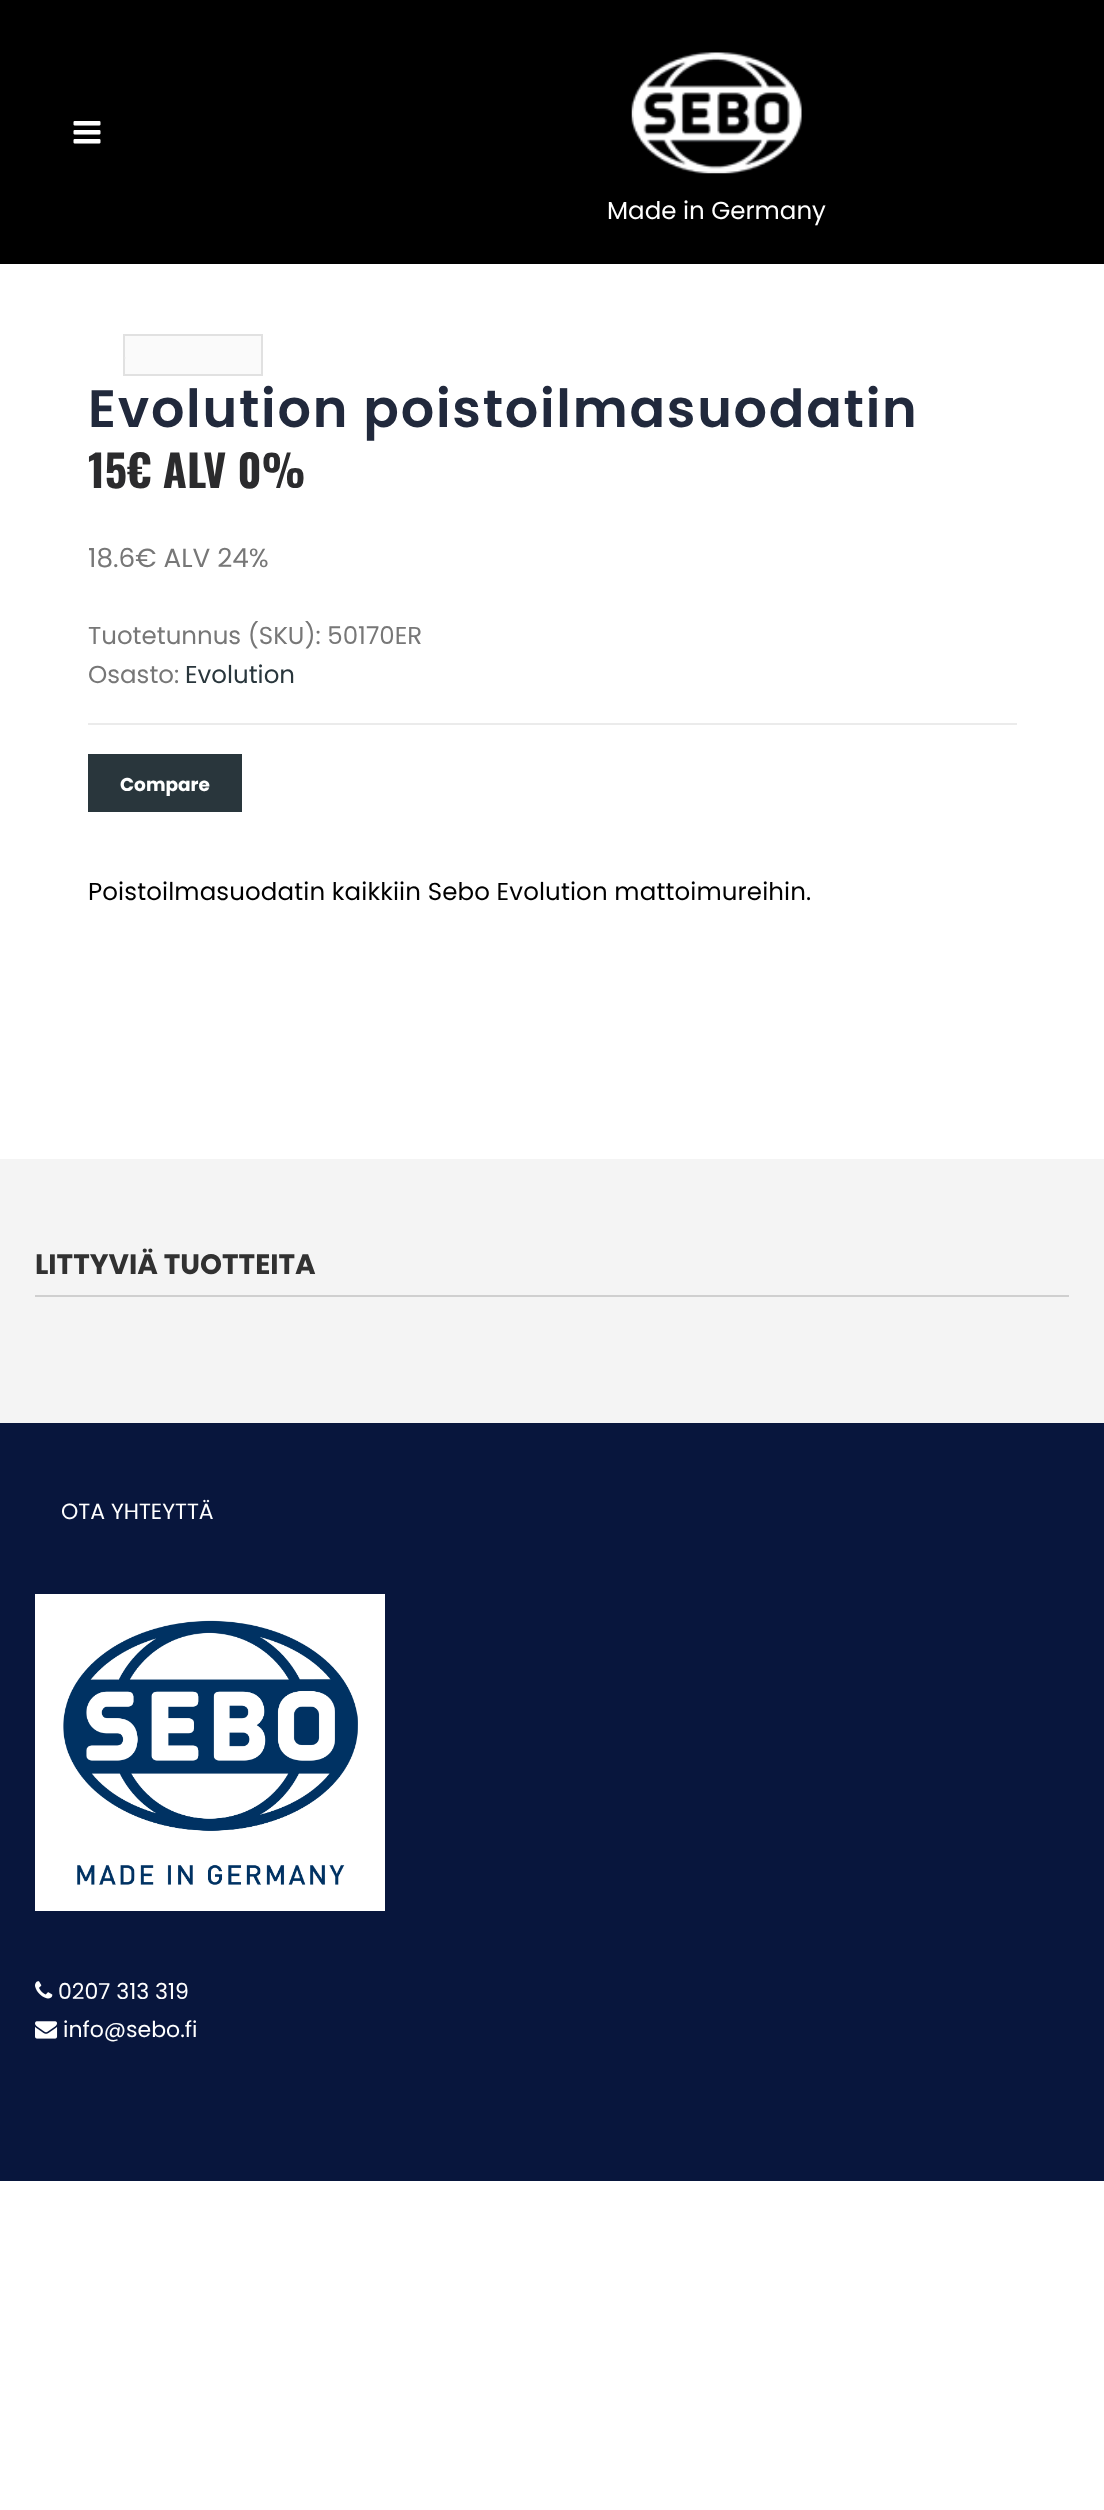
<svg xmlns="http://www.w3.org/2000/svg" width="1104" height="2510">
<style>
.a{font:24.5px Poppins;fill:#fff}
.b{font:600 52.5px Poppins;letter-spacing:1.75px;fill:#21293c}
.c{font:bold 43.75px Oswald;fill:#2b2b2d}
.d{font:26.25px Poppins;fill:#777}
.e{font:24.5px Poppins;fill:#777}
.f{font:24.5px Poppins;fill:#29363c}
.g{font:bold 18.5px Poppins;fill:#fff}
.h{font:24.5px Poppins;letter-spacing:0.12px;fill:#000}
.i{font:bold 28px Poppins;fill:#313131}
.j{font:22px Poppins;fill:#fff}
</style>
<rect width="100%" height="100%" fill="#fff"/>
<path fill="#000" d="M0 0h1104v264H0z"/>
<image href="1.png" x="73" y="121" width="28" height="23"/>
<image href="2.png" x="631" y="52" width="171" height="122"/>
<path fill="#fafafa" stroke="#e1e1e1" stroke-width="2" d="M124 335h138v40H124z"/>
<image href="3.png" x="124" y="357" width="2" height="2"/>
<path fill="#ebebeb" d="M88 723h929v2H88z"/>
<path fill="#29363c" d="M88 754h154v58H88z"/>
<path fill="#f4f4f4" d="M0 1159h1104v264H0z"/>
<path fill="#cfcfcf" d="M35 1295h1034v2H35z"/>
<path fill="#08163d" d="M0 1423h1104v758H0z"/>
<path fill="#fff" d="M35 1594h350v317H35z"/>
<image href="4.png" x="63" y="1620" width="295" height="265"/>
<image href="5.png" x="35" y="1981" width="18" height="18"/>
<image href="6.png" x="35" y="2021" width="23" height="18"/>
<text class="a" x="607" y="219">Made in Germany</text>
<text class="b" x="88" y="427">Evolution poistoilmasuodatin</text>
<text class="c" x="88" y="488">15€ ALV 0%</text>
<text class="d" x="88" y="567">18.6€ ALV 24%</text>
<text class="e" x="88" y="644">Tuotetunnus (SKU): 50170ER</text>
<text class="e" x="88" y="683">Osasto:</text>
<text class="f" x="185" y="683">Evolution</text>
<text class="g" x="120" y="791">Compare</text>
<text class="h" x="88" y="900">Poistoilmasuodatin kaikkiin Sebo Evolution mattoimureihin.</text>
<text class="i" x="35" y="1274">LITTYVIÄ TUOTTEITA</text>
<text class="j" x="61" y="1519">OTA YHTEYTTÄ</text>
<text class="j" x="58" y="1999">0207 313 319</text>
<text class="j" x="63" y="2037">info@sebo.fi</text>
</svg>
